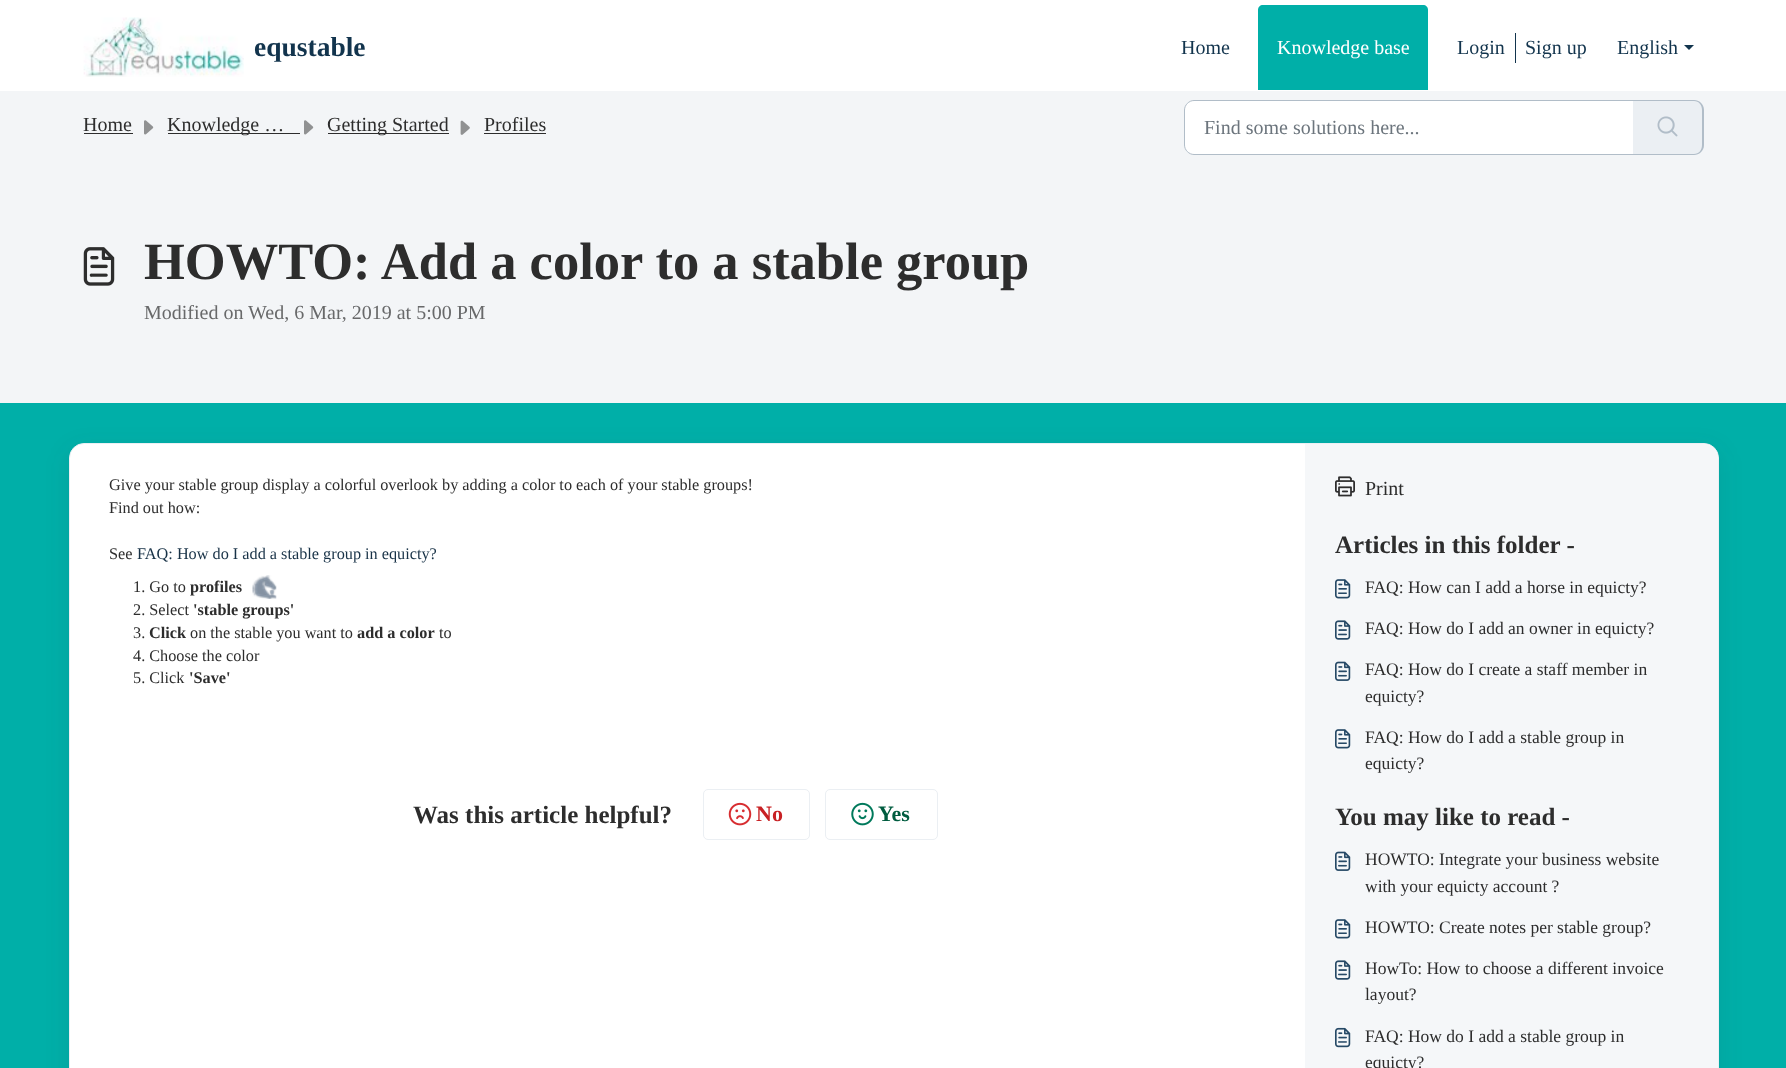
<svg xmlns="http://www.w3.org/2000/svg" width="1786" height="1068">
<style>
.a{font:bold 27.5px Liberation Serif;fill:#12344d}
.b{font:20px Liberation Serif;fill:#12344d}
.c{font:20px Liberation Serif;fill:#fff}
.d{font:20px Liberation Serif;fill:#2d2d2d}
.e{font:20px Liberation Serif;fill:#6c757d}
.f{font:bold 52.5px Liberation Serif;fill:#2d2d2d}
.g{font:20px Liberation Serif;fill:#68696a}
.h{font:16.25px Liberation Serif;fill:#2d2d2d}
.i{font:16.25px Liberation Serif;fill:#183247}
.j{font:bold 16.25px Liberation Serif;fill:#2d2d2d}
.k{font:bold 25px Liberation Serif;fill:#2d2d2d}
.l{font:bold 22px Liberation Serif;fill:#c82124}
.m{font:bold 22px Liberation Serif;fill:#005c3f}
.n{font:17.5px Liberation Serif;fill:#2d2d2d}
</style>
<rect width="100%" height="100%" fill="#00afa8"/>
<path fill="#fff" d="M0 0h1786v91H0z"/>
<image href="1.png" x="83" y="17" width="161" height="60"/>
<path fill="#00afa8" d="M1263 5h160c3 0 5 2 5 5v80h-170v-80c0-3 2-5 5-5z"/>
<path fill="#12344d" d="M1515 33h1v30H1515z"/>
<path fill="#12344d" d="M1684 45h10l-5 5z"/>
<path fill="#f3f5f7" d="M0 91h1786v312H0z"/>
<path fill="#2d2d2d" d="M84 133h49v1H84z"/>
<image href="2.png" x="144" y="120" width="10" height="15"/>
<path fill="#2d2d2d" d="M168 133h132v1H168z"/>
<image href="2.png" x="304" y="120" width="10" height="15"/>
<path fill="#2d2d2d" d="M328 133h121v1H328z"/>
<image href="3.png" x="460" y="120" width="10" height="15"/>
<path fill="#2d2d2d" d="M484 133h62v1H484z"/>
<path fill="#fff" stroke="#b1bdc8" d="M1194 100.5h439.5v54h-439.5c-5 0-9.5-4.5-9.5-9.5v-35c0-5 4.5-9.5 9.5-9.5z"/>
<path fill="#ebeff3" d="M1633 100h61c5.5 0 10 4.5 10 10v35c0 5.5-4.5 10-10 10h-61z"/>
<path fill="#b1bdc8" fill-rule="evenodd" d="M1632 100h62c5 0 10 4 10 10v35c0 6-5 10-10 10h-62zm0 1h62c5 0 8 4 8 9v35c0 5-3 9-8 9h-62z"/>
<image href="4.png" x="1657" y="116" width="21" height="21"/>
<image href="5.png" x="83" y="247" width="32" height="39"/>
<rect fill="#27313a1a" filter="blur(12px)" x="69" y="450" width="1650" height="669" rx="15"/>
<rect fill="#fff" stroke="#ebeff3" x="69.5" y="443.5" width="1649" height="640" rx="14.5"/>
<image href="6.png" x="252" y="575" width="25" height="24"/>
<rect fill="none" stroke="#ebeff3" x="703.5" y="789.5" width="106" height="50" rx="4.5"/>
<image href="7.png" x="728" y="802" width="24" height="24"/>
<rect fill="none" stroke="#ebeff3" x="825.5" y="789.5" width="112" height="50" rx="4.5"/>
<image href="8.png" x="851" y="802" width="23" height="24"/>
<path fill="#f5f7f9" d="M1305 444h398c8.5 0 15 6.5 15 15v609c0 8.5-6.5 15-15 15h-398z"/>
<image href="9.png" x="1335" y="476" width="20" height="21"/>
<image href="10.png" x="1335" y="579" width="16" height="20"/>
<image href="11.png" x="1335" y="620" width="16" height="20"/>
<image href="12.png" x="1335" y="661" width="16" height="20"/>
<image href="10.png" x="1335" y="729" width="16" height="20"/>
<image href="12.png" x="1335" y="851" width="16" height="20"/>
<image href="10.png" x="1335" y="919" width="16" height="20"/>
<image href="11.png" x="1335" y="960" width="16" height="20"/>
<image href="13.png" x="1335" y="1027" width="16" height="21"/>
<text class="a" x="254" y="56">equstable</text>
<text class="b" x="1181" y="54">Home</text>
<text class="c" x="1277" y="54">Knowledge base</text>
<text class="b" x="1457" y="54">Login</text>
<text class="b" x="1525" y="54">Sign up</text>
<text class="b" x="1617" y="54">English</text>
<text class="d" x="83" y="131">Home</text>
<text class="d" x="167" y="131">Knowledge …</text>
<text class="d" x="327" y="131">Getting Started</text>
<text class="d" x="484" y="131">Profiles</text>
<text class="e" x="1204" y="134">Find some solutions here...</text>
<text class="f" x="144" y="279">HOWTO: Add a color to a stable group</text>
<text class="g" x="144" y="319">Modified on Wed, 6 Mar, 2019 at 5:00 PM</text>
<text class="h" x="109" y="490">Give your stable group display a colorful overlook by adding a color to each of your stable groups!</text>
<text class="h" x="109" y="513">Find out how:</text>
<text class="h" x="109" y="559">See</text>
<text class="i" x="137" y="559">FAQ: How do I add a stable group in equicty?</text>
<text class="h" x="133" y="592">1. Go to</text>
<text class="j" x="190" y="592">profiles</text>
<text class="h" x="133" y="615">2. Select</text>
<text class="j" x="193" y="615">'stable groups'</text>
<text class="h" x="133" y="638">3.</text>
<text class="j" x="149" y="638">Click</text>
<text class="h" x="190" y="638">on the stable you want to</text>
<text class="j" x="357" y="638">add a color</text>
<text class="h" x="439" y="638">to</text>
<text class="h" x="133" y="661">4. Choose the color</text>
<text class="h" x="133" y="683">5. Click</text>
<text class="j" x="189" y="683">'Save'</text>
<text class="k" x="413" y="823">Was this article helpful?</text>
<text class="l" x="756" y="821">No</text>
<text class="m" x="878" y="821">Yes</text>
<text class="d" x="1365" y="495">Print</text>
<text class="k" x="1335" y="553">Articles in this folder -</text>
<text class="n" x="1365" y="593">FAQ: How can I add a horse in equicty?</text>
<text class="n" x="1365" y="634">FAQ: How do I add an owner in equicty?</text>
<text class="n" x="1365" y="675">FAQ: How do I create a staff member in</text>
<text class="n" x="1365" y="702">equicty?</text>
<text class="n" x="1365" y="743">FAQ: How do I add a stable group in</text>
<text class="n" x="1365" y="769">equicty?</text>
<text class="k" x="1335" y="825">You may like to read -</text>
<text class="n" x="1365" y="865">HOWTO: Integrate your business website</text>
<text class="n" x="1365" y="892">with your equicty account ?</text>
<text class="n" x="1365" y="933">HOWTO: Create notes per stable group?</text>
<text class="n" x="1365" y="974">HowTo: How to choose a different invoice</text>
<text class="n" x="1365" y="1000">layout?</text>
<text class="n" x="1365" y="1042">FAQ: How do I add a stable group in</text>
<text class="n" x="1365" y="1068">equicty?</text>
</svg>
